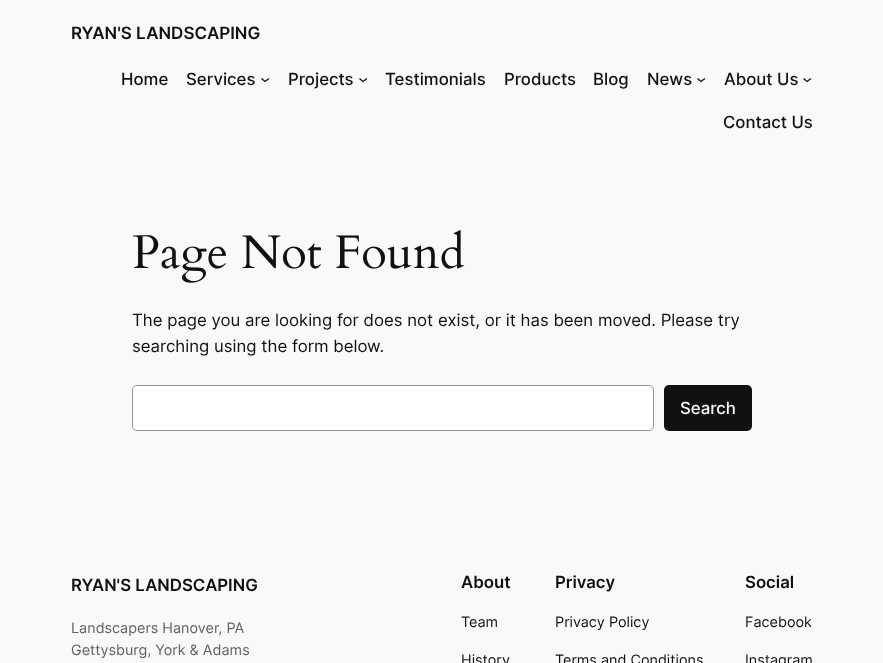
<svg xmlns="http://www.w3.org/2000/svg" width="883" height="663">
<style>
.a{font:600 17px Inter;fill:#111}
.b{font:500 16.8px Inter;fill:#111}
.c{font:16.8px Inter;fill:#111}
.d{font:500 16.8px Inter;fill:#f9f9f9}
.e{font:600 16.8px Inter;fill:#111}
.f{font:14.4px Inter;fill:#636363}
.g{font:14.4px Inter;fill:#111}
</style>
<rect width="100%" height="100%" fill="#f9f9f9"/>
<path fill="none" stroke="#111" stroke-width="1.3" d="M261.5 78.5l3.5 3l4-3"/>
<path fill="none" stroke="#111" stroke-width="1.3" d="M359.5 78.5l3.5 3l4-3"/>
<path fill="none" stroke="#111" stroke-width="1.3" d="M697.5 78.5l3.5 3l4-3"/>
<path fill="none" stroke="#111" stroke-width="1.3" d="M803.5 78.5l3.5 3l4-3"/>
<image href="1.png" x="133" y="230" width="332" height="53"/>
<rect fill="#fff" stroke="#949494" x="132.5" y="385.5" width="521" height="45" rx="4.5"/>
<rect fill="#111" x="664" y="385" width="88" height="46" rx="5"/>
<text class="a" x="71" y="39">RYAN'S LANDSCAPING</text>
<text class="b" x="121" y="85">Home</text>
<text class="b" x="186" y="85">Services</text>
<text class="b" x="288" y="85">Projects</text>
<text class="b" x="385" y="85">Testimonials</text>
<text class="b" x="504" y="85">Products</text>
<text class="b" x="593" y="85">Blog</text>
<text class="b" x="647" y="85">News</text>
<text class="b" x="724" y="85">About Us</text>
<text class="b" x="723" y="128">Contact Us</text>
<text class="c" x="132" y="326">The page you are looking for does not exist, or it has been moved. Please try</text>
<text class="c" x="132" y="352">searching using the form below.</text>
<text class="d" x="680" y="414">Search</text>
<text class="e" x="71" y="591">RYAN'S LANDSCAPING</text>
<text class="f" x="71" y="633">Landscapers Hanover, PA</text>
<text class="f" x="71" y="655">Gettysburg, York &amp; Adams</text>
<text class="e" x="461" y="588">About</text>
<text class="g" x="461" y="627">Team</text>
<text class="g" x="461" y="665">History</text>
<text class="e" x="555" y="588">Privacy</text>
<text class="g" x="555" y="627">Privacy Policy</text>
<text class="g" x="555" y="665">Terms and Conditions</text>
<text class="e" x="745" y="588">Social</text>
<text class="g" x="745" y="627">Facebook</text>
<text class="g" x="745" y="665">Instagram</text>
</svg>
